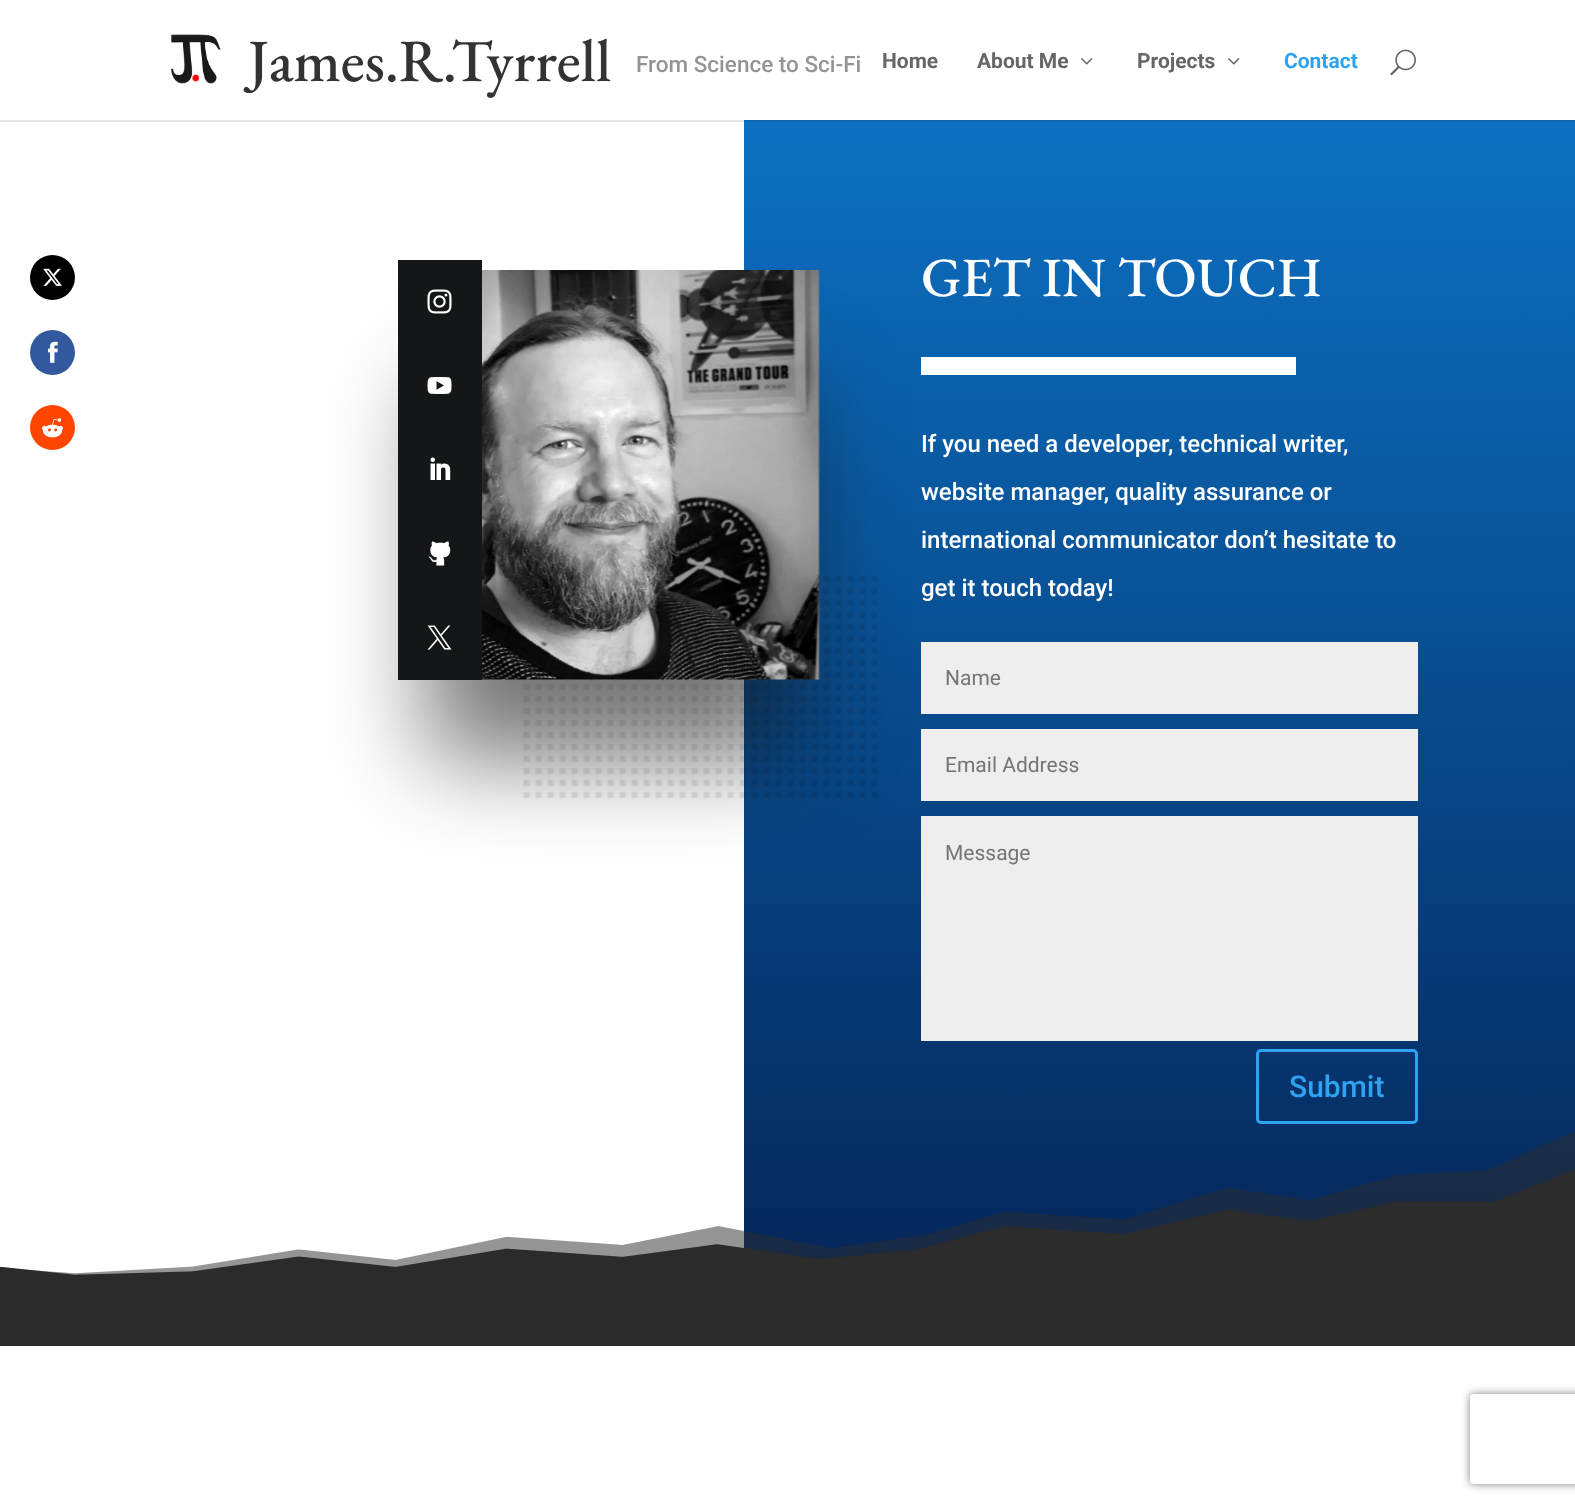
<svg xmlns="http://www.w3.org/2000/svg" width="1575" height="1504">
<style>
.a{font:500 60px EB Garamond;fill:#333}
.b{font:500 22.5px Roboto;fill:#949494}
.c{font:bold 21px Roboto;fill:#666}
.d{font:bold 21px Roboto;fill:#2ea3f2}
.e{font:500 55.5px EB Garamond;fill:#fff}
.f{font:500 24px Roboto;fill:#fff}
.g{font:21px Roboto;fill:#757575}
.h{font:500 30px Roboto;fill:#2ea3f2}
</style>
<defs>
<linearGradient id="g1" gradientUnits="userSpaceOnUse" x1="788" y1="112" x2="788" y2="1281"><stop offset="0" stop-color="#0c71c3"/><stop offset="1" stop-color="#052659"/></linearGradient>
<linearGradient id="g2" gradientUnits="userSpaceOnUse" x1="788" y1="112" x2="788" y2="1281"><stop offset="0" stop-color="#0b66b0"/><stop offset="1" stop-color="#052250"/></linearGradient>
<clipPath id="clip1"><path d="M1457 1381h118v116h-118zm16 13h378c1.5 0 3 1.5 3 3v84c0 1.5-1.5 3-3 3h-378c-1.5 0-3-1.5-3-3v-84c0-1.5 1.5-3 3-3z" clip-rule="evenodd"/></clipPath>
</defs>
<rect width="100%" height="100%" fill="#fff"/>
<circle fill="#000" cx="52.5" cy="277.5" r="22.5"/>
<image href="1.png" x="43" y="268" width="19" height="18"/>
<circle fill="#32599d" cx="52.5" cy="352.5" r="22.5"/>
<image href="2.png" x="48" y="341" width="10" height="22"/>
<circle fill="#ff4500" cx="52.5" cy="427.5" r="22.5"/>
<image href="3.png" x="42" y="418" width="21" height="20"/>
<image href="4.png" x="171" y="34" width="50" height="50"/>
<image href="5.png" x="1081" y="58" width="12" height="7"/>
<image href="5.png" x="1228" y="58" width="12" height="7"/>
<image href="6.png" x="1390" y="49" width="26" height="27"/>
<path fill="url(#g1)" d="M744 122h831v1138H744z"/>
<path fill="url(#g2)" d="M744 120h831v2H744z"/>
<path fill="#e6e6e6" d="M0 120h744v2H0z"/>
<image href="7.png" x="523" y="576" width="355" height="222"/>
<path fill="#13131396" filter="blur(48px)" d="M428 384h373v374H428z"/>
<image href="8.png" x="482" y="270" width="338" height="410"/>
<path fill="#141617" d="M398 260h84v420H398z"/>
<image href="9.png" x="427" y="289" width="25" height="25"/>
<image href="10.png" x="427" y="377" width="25" height="17"/>
<image href="11.png" x="430" y="457" width="21" height="23"/>
<image href="12.png" x="428" y="541" width="23" height="25"/>
<image href="13.png" x="427" y="625" width="25" height="25"/>
<path fill="#fff" d="M921 357h375v18H921z"/>
<path fill="#eee" d="M921 642h497v72H921z"/>
<path fill="#eee" d="M921 729h497v72H921z"/>
<path fill="#eee" d="M921 816h497v225H921z"/>
<rect fill="none" stroke="#2ea3f2" stroke-width="3" x="1257.5" y="1050.5" width="159" height="72" rx="3.5"/>
<image href="14.png" x="0" y="1131" width="1575" height="150"/>
<path fill="#2b2b2b" d="M0 1281h1575v65H0z"/>
<g clip-path="url(#clip1)">
<rect fill="#808080" filter="blur(4px)" x="1470" y="1394" width="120" height="90" rx="3"/>
</g>
<text class="a" x="248" y="81">James.R.Tyrrell</text>
<text class="b" x="636" y="72">From Science to Sci-Fi</text>
<text class="c" x="882" y="68">Home</text>
<text class="c" x="977" y="68">About Me</text>
<text class="c" x="1137" y="68">Projects</text>
<text class="d" x="1284" y="68">Contact</text>
<text class="e" x="921" y="296">GET IN TOUCH</text>
<text class="f" x="921" y="452">If you need a developer, technical writer,</text>
<text class="f" x="921" y="500">website manager, quality assurance or</text>
<text class="f" x="921" y="548">international communicator don’t hesitate to</text>
<text class="f" x="921" y="596">get it touch today!</text>
<text class="g" x="945" y="685">Name</text>
<text class="g" x="945" y="772">Email Address</text>
<text class="g" x="945" y="860">Message</text>
<text class="h" x="1289" y="1097">Submit</text>
</svg>
